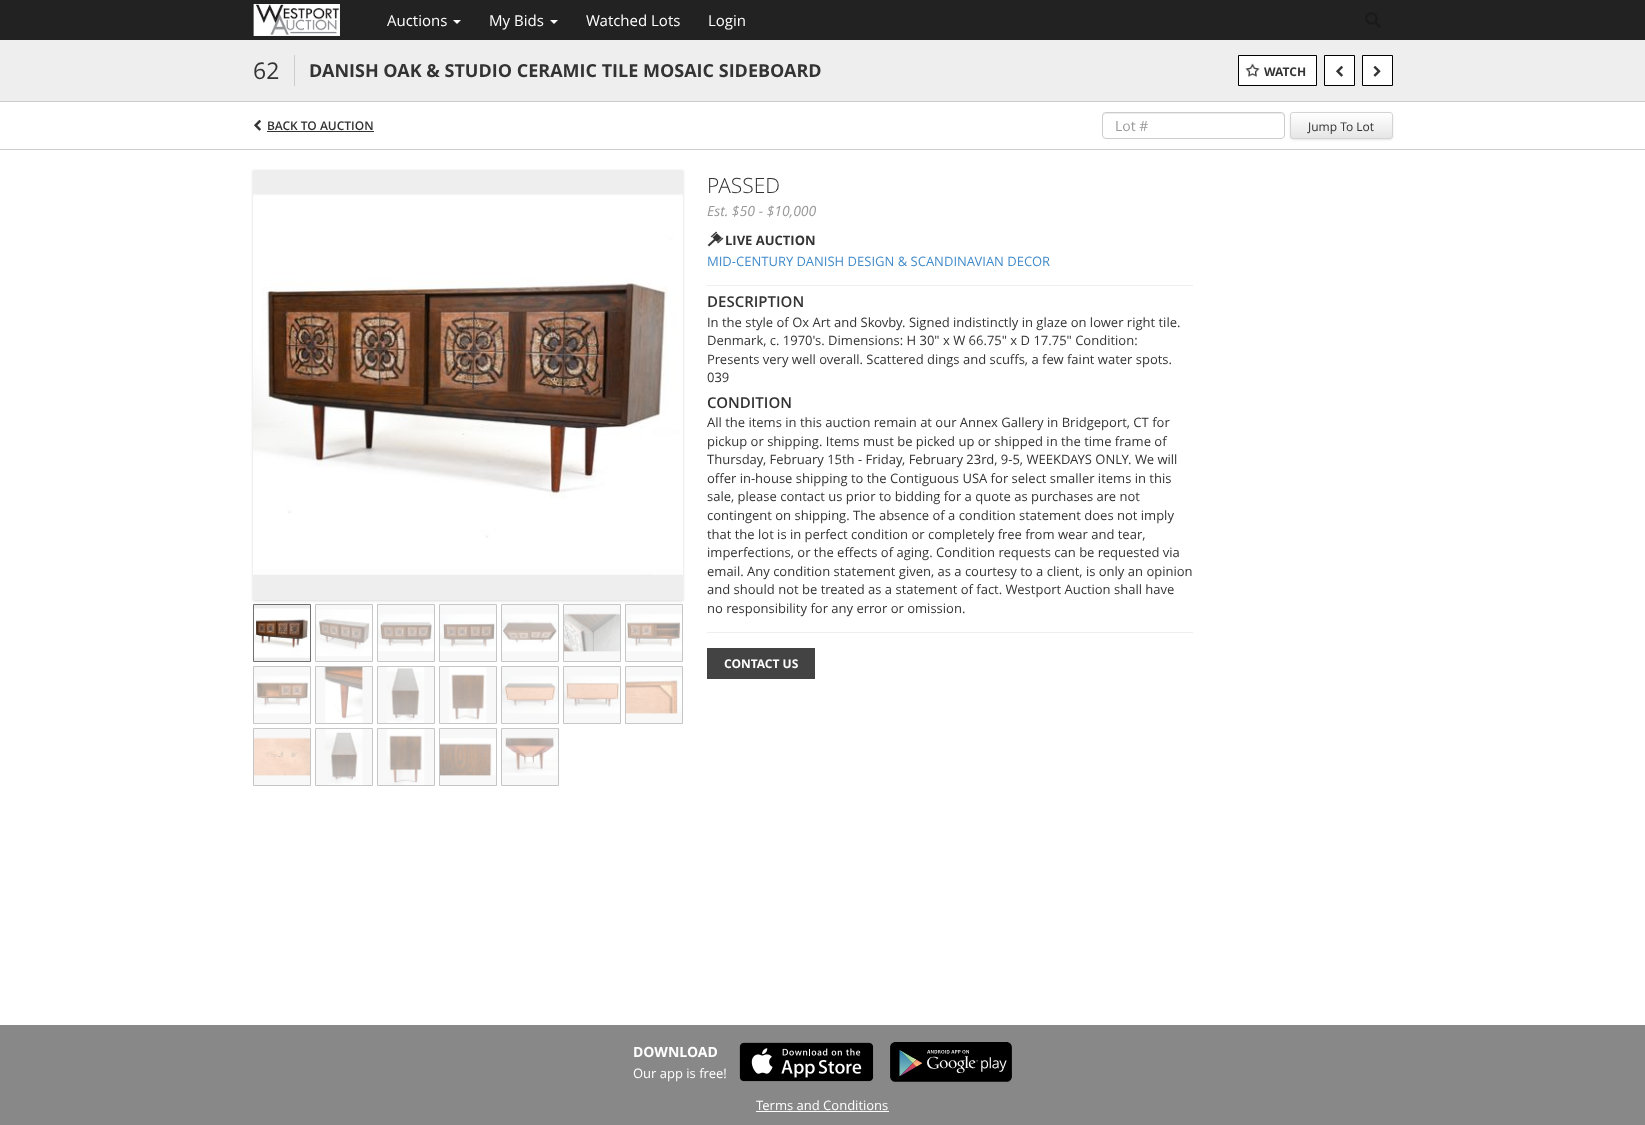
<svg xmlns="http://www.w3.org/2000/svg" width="1645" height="1125">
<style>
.a{font:15px Open Sans;fill:#fff}
.b{font:23px Open Sans;fill:#333}
.c{font:bold 18px Open Sans;fill:#333}
.d{font:bold 12px Open Sans;fill:#333}
.e{font:600 12px Open Sans;fill:#333}
.f{font:14px Open Sans;fill:#999}
.g{font:12px Open Sans;fill:#333}
.h{font:300 21px Open Sans;fill:#333}
.i{font:italic 14px Open Sans;fill:#999}
.j{font:bold 13px Open Sans;fill:#333}
.k{font:13px Open Sans;fill:#428bca}
.l{font:600 15px Open Sans;fill:#333}
.m{font:13px Open Sans;fill:#333}
.n{font:bold 12px Open Sans;fill:#fff}
.o{font:bold 14px Open Sans;fill:#fff}
.p{font:13px Open Sans;fill:#fff}
</style>
<defs>
<clipPath id="clip1"><rect x="1290" y="112" width="103" height="27" rx="3"/></clipPath>
<linearGradient id="g1" gradientUnits="userSpaceOnUse" x1="1342" y1="113" x2="1342" y2="138"><stop offset="0" stop-color="#fff"/><stop offset="1" stop-color="#e6e6e6"/></linearGradient>
</defs>
<rect width="100%" height="100%" fill="#fff"/>
<path fill="#222" d="M0 0h1645v40H0z"/>
<image href="1.png" x="253" y="4" width="87" height="32"/>
<path fill="#fff" d="M453 20h8l-4 4z"/>
<path fill="#fff" d="M550 20h8l-4 4z"/>
<image href="2.png" x="1365" y="12" width="16" height="16"/>
<path fill="#eee" d="M0 40h1645v61H0z"/>
<path fill="#ccc" d="M0 101h1645v1H0z"/>
<path fill="#ccc" d="M294 55h1v31H294z"/>
<path fill="#fff" stroke="#000" d="M1238.5 55.5h78v30H1238.5z"/>
<image href="3.png" x="1245" y="63" width="15" height="14"/>
<path fill="#fff" stroke="#000" d="M1324.5 55.5h30v30H1324.5z"/>
<image href="4.png" x="1336" y="65" width="7" height="12"/>
<path fill="#fff" stroke="#000" d="M1362.5 55.5h30v30H1362.5z"/>
<image href="5.png" x="1373" y="65" width="8" height="12"/>
<image href="4.png" x="254" y="119" width="7" height="12"/>
<path fill="#333" d="M267 131h107v1H267z"/>
<path fill="#ececec" d="M1106 114h176l1 1l1 2v-1c0-2-1-3-3-3h-175c-2 0-3 1-3 3v1c0-2 1-3 3-3z"/>
<rect fill="none" stroke="#ccc" x="1102.5" y="112.5" width="182" height="26" rx="3.5"/>
<rect fill="#00000033" filter="blur(1.5px)" x="1291" y="114" width="101" height="25" rx="2"/>
<g clip-path="url(#clip1)">
<path fill="url(#g1)" d="M1290 113h103v25H1290z"/>
</g>
<path fill="#ffffff66" d="M1293 114h97c1 0 2 1 2 2c0-1 0-3-2-3h-81c-1 0-18-5-18 3c0-1 1-2 2-2z"/>
<rect fill="none" stroke="#d4d4d4" x="1290.5" y="112.5" width="102" height="26" rx="2.5"/>
<path fill="#ccc" d="M0 149h1645v1H0z"/>
<path fill="#dad9d7" filter="blur(1.5px)" d="M253 171h430v430H253z"/>
<image href="6.png" x="253" y="170" width="430" height="430"/>
<path fill="none" stroke="#717171" d="M253.5 604.5h57v57H253.5z"/>
<path fill="none" stroke="#c6c6c6" d="M315.5 604.5h57v57H315.5z"/>
<path fill="none" stroke="#c6c6c6" d="M377.5 604.5h57v57H377.5z"/>
<path fill="none" stroke="#c6c6c6" d="M439.5 604.5h57v57H439.5z"/>
<path fill="none" stroke="#c6c6c6" d="M501.5 604.5h57v57H501.5z"/>
<path fill="none" stroke="#c6c6c6" d="M563.5 604.5h57v57H563.5z"/>
<path fill="none" stroke="#c6c6c6" d="M625.5 604.5h57v57H625.5z"/>
<image href="7.png" x="254" y="605" width="56" height="56"/>
<image href="8.png" x="316" y="605" width="56" height="56"/>
<image href="9.png" x="378" y="605" width="56" height="56"/>
<image href="10.png" x="440" y="605" width="56" height="56"/>
<image href="11.png" x="502" y="605" width="56" height="56"/>
<image href="12.png" x="564" y="605" width="56" height="56"/>
<image href="13.png" x="626" y="605" width="56" height="56"/>
<path fill="none" stroke="#c6c6c6" d="M253.5 666.5h57v57H253.5z"/>
<path fill="none" stroke="#c6c6c6" d="M315.5 666.5h57v57H315.5z"/>
<path fill="none" stroke="#c6c6c6" d="M377.5 666.5h57v57H377.5z"/>
<path fill="none" stroke="#c6c6c6" d="M439.5 666.5h57v57H439.5z"/>
<path fill="none" stroke="#c6c6c6" d="M501.5 666.5h57v57H501.5z"/>
<path fill="none" stroke="#c6c6c6" d="M563.5 666.5h57v57H563.5z"/>
<path fill="none" stroke="#c6c6c6" d="M625.5 666.5h57v57H625.5z"/>
<image href="14.png" x="254" y="667" width="56" height="56"/>
<image href="15.png" x="316" y="667" width="56" height="56"/>
<image href="16.png" x="378" y="667" width="56" height="56"/>
<image href="17.png" x="440" y="667" width="56" height="56"/>
<image href="18.png" x="502" y="667" width="56" height="56"/>
<image href="19.png" x="564" y="667" width="56" height="56"/>
<image href="20.png" x="626" y="667" width="56" height="56"/>
<path fill="none" stroke="#c6c6c6" d="M253.5 728.5h57v57H253.5z"/>
<path fill="none" stroke="#c6c6c6" d="M315.5 728.5h57v57H315.5z"/>
<path fill="none" stroke="#c6c6c6" d="M377.5 728.5h57v57H377.5z"/>
<path fill="none" stroke="#c6c6c6" d="M439.5 728.5h57v57H439.5z"/>
<path fill="none" stroke="#c6c6c6" d="M501.5 728.5h57v57H501.5z"/>
<image href="21.png" x="254" y="729" width="56" height="56"/>
<image href="22.png" x="316" y="729" width="56" height="56"/>
<image href="23.png" x="378" y="729" width="56" height="56"/>
<image href="24.png" x="440" y="729" width="56" height="56"/>
<image href="25.png" x="502" y="729" width="56" height="56"/>
<image href="26.png" x="707" y="231" width="17" height="16"/>
<path fill="#eee" d="M707 285h486v1H707z"/>
<path fill="#eee" d="M707 632h486v1H707z"/>
<path fill="#434343" d="M707 648h108v31H707z"/>
<path fill="#888" d="M0 1025h1645v100H0z"/>
<image href="27.png" x="739" y="1042" width="135" height="40"/>
<image href="28.png" x="890" y="1042" width="122" height="40"/>
<path fill="#fff" d="M756 1111h133v1H756z"/>
<text class="a" x="387" y="26">Auctions</text>
<text class="a" x="489" y="26">My Bids</text>
<text class="a" x="586" y="26">Watched Lots</text>
<text class="a" x="708" y="26">Login</text>
<text class="b" x="253" y="79">62</text>
<text class="c" x="309" y="77">DANISH OAK &amp; STUDIO CERAMIC TILE MOSAIC SIDEBOARD</text>
<text class="d" x="1264" y="76">WATCH</text>
<text class="e" x="267" y="130">BACK TO AUCTION</text>
<text class="f" x="1115" y="131">Lot #</text>
<text class="g" x="1308" y="131">Jump To Lot</text>
<text class="h" x="707" y="193">PASSED</text>
<text class="i" x="707" y="216">Est. $50 - $10,000</text>
<text class="j" x="725" y="245">LIVE AUCTION</text>
<text class="k" x="707" y="266">MID-CENTURY DANISH DESIGN &amp; SCANDINAVIAN DECOR</text>
<text class="l" x="707" y="307">DESCRIPTION</text>
<text class="m" x="707" y="327">In the style of Ox Art and Skovby. Signed indistinctly in glaze on lower right tile.</text>
<text class="m" x="707" y="345">Denmark, c. 1970's. Dimensions: H 30" x W 66.75" x D 17.75" Condition:</text>
<text class="m" x="707" y="364">Presents very well overall. Scattered dings and scuffs, a few faint water spots.</text>
<text class="m" x="707" y="382">039</text>
<text class="l" x="707" y="408">CONDITION</text>
<text class="m" x="707" y="427">All the items in this auction remain at our Annex Gallery in Bridgeport, CT for</text>
<text class="m" x="707" y="446">pickup or shipping. Items must be picked up or shipped in the time frame of</text>
<text class="m" x="707" y="464">Thursday, February 15th - Friday, February 23rd, 9-5, WEEKDAYS ONLY. We will</text>
<text class="m" x="707" y="483">offer in-house shipping to the Contiguous USA for select smaller items in this</text>
<text class="m" x="707" y="501">sale, please contact us prior to bidding for a quote as purchases are not</text>
<text class="m" x="707" y="520">contingent on shipping. The absence of a condition statement does not imply</text>
<text class="m" x="707" y="539">that the lot is in perfect condition or completely free from wear and tear,</text>
<text class="m" x="707" y="557">imperfections, or the effects of aging. Condition requests can be requested via</text>
<text class="m" x="707" y="576">email. Any condition statement given, as a courtesy to a client, is only an opinion</text>
<text class="m" x="707" y="594">and should not be treated as a statement of fact. Westport Auction shall have</text>
<text class="m" x="707" y="613">no responsibility for any error or omission.</text>
<text class="n" x="724" y="668">CONTACT US</text>
<text class="o" x="633" y="1057">DOWNLOAD</text>
<text class="p" x="633" y="1078">Our app is free!</text>
<text class="p" x="756" y="1110">Terms and Conditions</text>
</svg>
